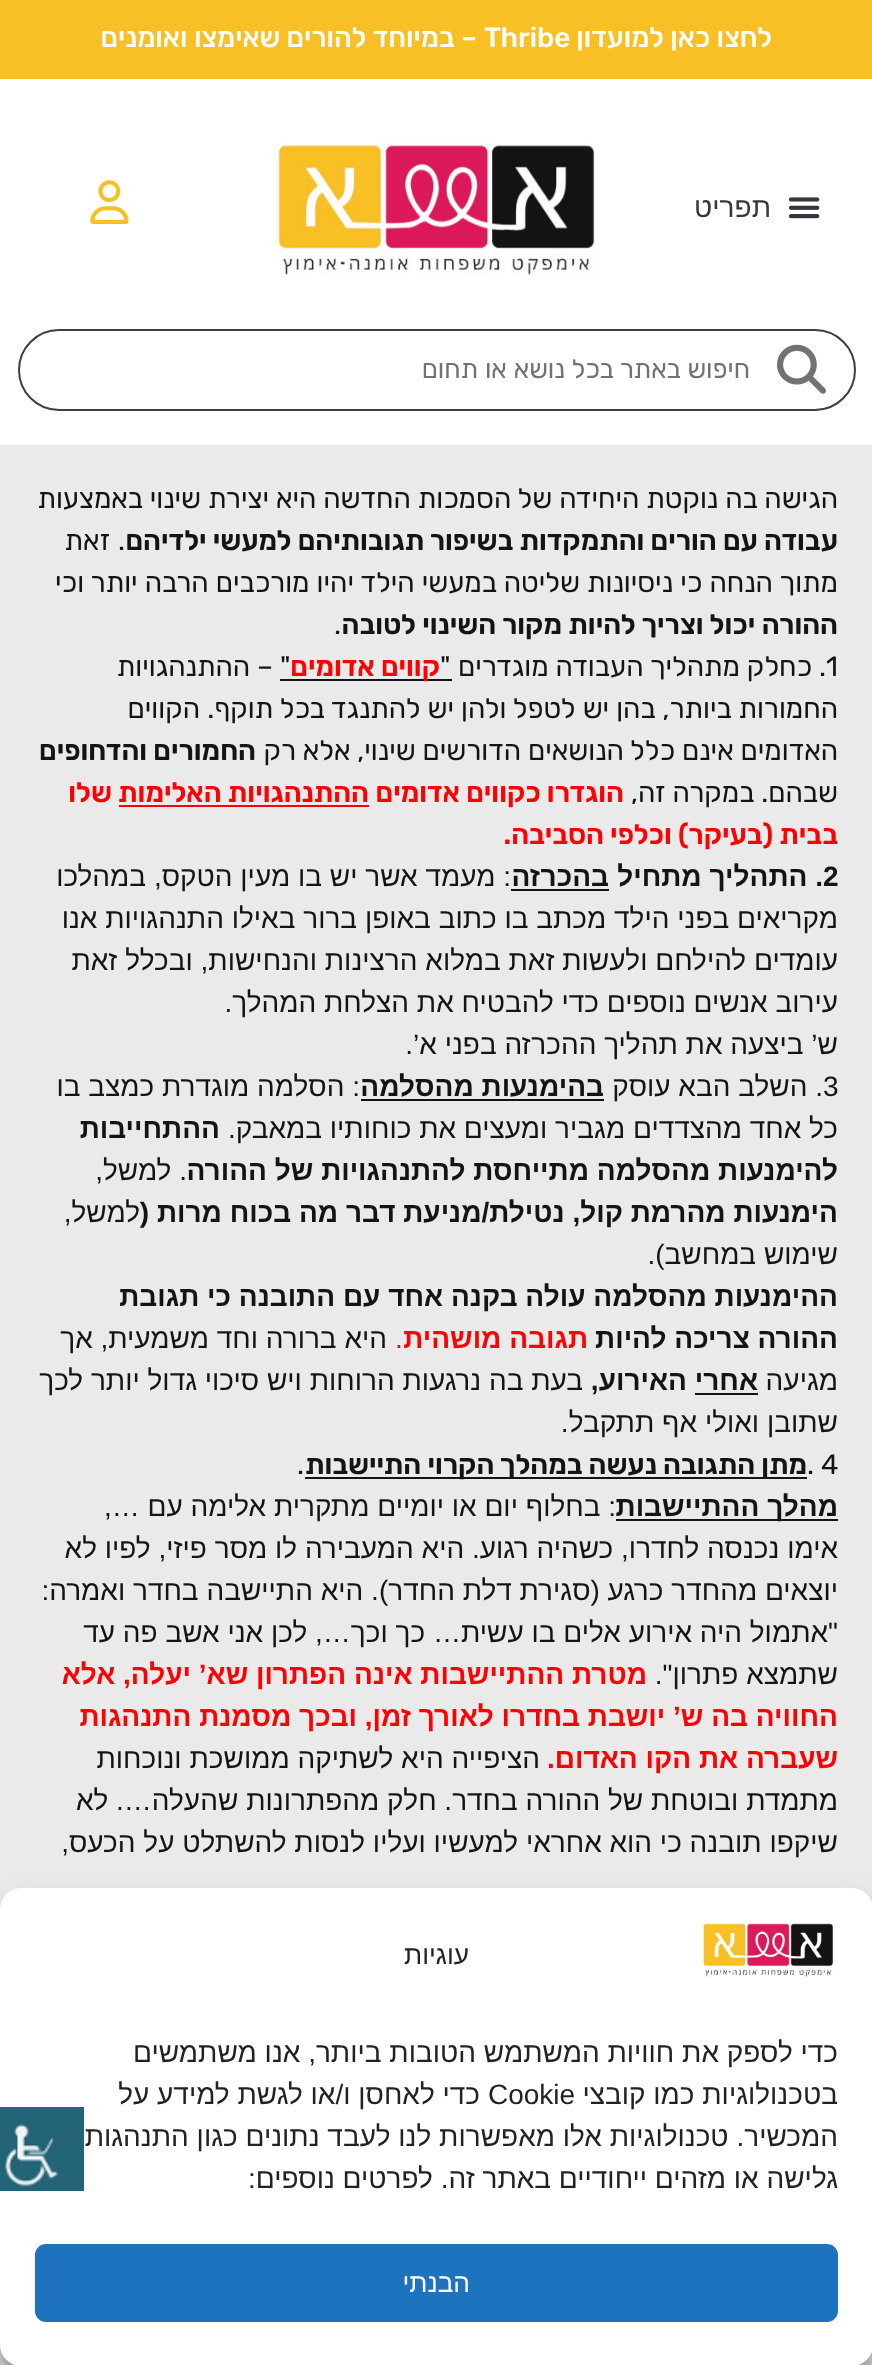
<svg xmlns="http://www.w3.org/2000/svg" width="872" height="2365">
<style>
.a{font:500 28px Rubik;direction:rtl;fill:#fff}
.b{font:500 28px Rubik;fill:#fff}
.c{font:28px Liberation Sans;direction:rtl;fill:#33373d}
.d{font:26.25px Rubik;direction:rtl;fill:#727272}
.e{font:28px Rubik;direction:rtl;fill:#141414}
.f{font:600 28px Rubik;direction:rtl;fill:#141414}
.g{font:28px Rubik;fill:#141414}
.h{font:600 28px Rubik;direction:rtl;fill:#f00}
.i{font:bold 28px Liberation Sans;fill:#141414}
.j{font:bold 28px Liberation Sans;direction:rtl;fill:#141414}
.k{font:28px Liberation Sans;direction:rtl;fill:#141414}
.l{font:28px Liberation Sans;fill:#141414}
.m{font:bold 28px Liberation Sans;direction:rtl;fill:#f00}
.n{font:28px Liberation Sans;fill:#f00}
.o{font:26.25px Liberation Sans;direction:rtl;fill:#222}
.p{font:28px Liberation Sans;direction:rtl;fill:#222}
.q{font:28px Liberation Sans;fill:#222}
.r{font:26.25px Liberation Sans;direction:rtl;fill:#fff}
</style>
<rect width="100%" height="100%" fill="#eaeaea"/>
<path fill="#fff" d="M0 79h872v366H0z"/>
<path fill="#f8c025" d="M0 0h872v79H0z"/>
<image href="1.png" x="788" y="197" width="32" height="22"/>
<image href="2.png" x="273" y="143" width="322" height="136"/>
<image href="3.png" x="90" y="180" width="39" height="44"/>
<rect fill="none" stroke="#3f3f3f" stroke-width="2" x="19" y="330" width="836" height="80" rx="40"/>
<image href="4.png" x="777" y="344" width="49" height="50"/>
<path fill="#141414" d="M280 679h172v2H280z"/>
<path fill="#f00" d="M119 805h250v2H119z"/>
<path fill="#141414" d="M511 889h98v2H511z"/>
<path fill="#141414" d="M361 1099h243v2H361z"/>
<path fill="#141414" d="M695 1393h63v2H695z"/>
<path fill="#141414" d="M305 1477h502v2H305z"/>
<path fill="#141414" d="M616 1519h222v2H616z"/>
<rect fill="#0000003b" filter="blur(5px)" y="1899" width="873" height="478" rx="21"/>
<rect fill="#00000030" filter="blur(17.5px)" y="1906" width="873" height="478" rx="21"/>
<rect fill="#fff" y="1888" width="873" height="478" rx="21"/>
<image href="5.png" x="701" y="1923" width="133" height="54"/>
<rect fill="#1e73be" stroke="#1e73be" stroke-width="2" x="36" y="2245" width="801" height="76" rx="10"/>
<image href="6.png" x="0" y="2107" width="84" height="84"/>
<text class="a" x="772" y="47">לחצו כאן למועדון</text>
<text class="b" x="484" y="47">Thribe</text>
<text class="a" x="477" y="47">– במיוחד להורים שאימצו ואומנים</text>
<text class="c" x="771" y="217">תפריט</text>
<text class="d" x="750" y="378" word-spacing="0.5">חיפוש באתר בכל נושא או תחום</text>
<text class="e" x="838" y="508" word-spacing="0.1">הגישה בה נוקטת היחידה של הסמכות החדשה היא יצירת שינוי באמצעות</text>
<text class="f" x="838" y="550">עבודה עם הורים והתמקדות בשיפור תגובותיהם למעשי ילדיהם</text>
<text class="e" x="125" y="550" word-spacing="1">. זאת</text>
<text class="e" x="838" y="592" word-spacing="0.25">מתוך הנחה כי ניסיונות שליטה במעשי הילד יהיו מורכבים הרבה יותר וכי</text>
<text class="f" x="838" y="634" word-spacing="0.25">ההורה יכול וצריך להיות מקור השינוי לטובה</text>
<text class="g" x="334" y="634">.</text>
<text class="g" x="826" y="676">1</text>
<text class="e" x="826" y="676">. כחלק מתהליך העבודה מוגדרים</text>
<text class="g" x="440" y="676">"</text>
<text class="h" x="440" y="676">קווים אדומים</text>
<text class="g" x="280" y="676">"</text>
<text class="e" x="273" y="676">– ההתנהגויות</text>
<text class="e" x="838" y="718" word-spacing="0.25">החמורות ביותר, בהן יש לטפל ולהן יש להתנגד בכל תוקף. הקווים</text>
<text class="e" x="838" y="760">האדומים אינם כלל הנושאים הדורשים שינוי, אלא רק</text>
<text class="f" x="256" y="760">החמורים והדחופים</text>
<text class="e" x="838" y="802" word-spacing="0.25">שבהם. במקרה זה,</text>
<text class="h" x="624" y="802">הוגדרו כקווים אדומים</text>
<text class="h" x="369" y="802">ההתנהגויות האלימות</text>
<text class="h" x="112" y="802">שלו</text>
<text class="h" x="838" y="844">בבית (בעיקר) וכלפי הסביבה.</text>
<text class="i" x="823" y="886">2</text>
<text class="j" x="823" y="886">. התהליך מתחיל</text>
<text class="j" x="609" y="886">בהכרזה</text>
<text class="k" x="511" y="886">: מעמד אשר יש בו מעין הטקס, במהלכו</text>
<text class="k" x="838" y="928">מקריאים בפני הילד מכתב בו כתוב באופן ברור באילו התנהגויות אנו</text>
<text class="k" x="838" y="970">עומדים להילחם ולעשות זאת במלוא הרצינות והנחישות, ובכלל זאת</text>
<text class="k" x="838" y="1012">עירוב אנשים נוספים כדי להבטיח את הצלחת המהלך.</text>
<text class="k" x="838" y="1054">ש’ ביצעה את תהליך ההכרזה בפני א’.</text>
<text class="l" x="823" y="1096">3</text>
<text class="k" x="823" y="1096">. השלב הבא עוסק</text>
<text class="j" x="604" y="1096">בהימנעות מהסלמה</text>
<text class="k" x="360" y="1096">: הסלמה מוגדרת כמצב בו</text>
<text class="k" x="838" y="1138">כל אחד מהצדדים מגביר ומעצים את כוחותיו במאבק.</text>
<text class="j" x="220" y="1138">ההתחייבות</text>
<text class="j" x="838" y="1180">להימנעות מהסלמה מתייחסת להתנהגויות של ההורה</text>
<text class="k" x="187" y="1180">. למשל,</text>
<text class="j" x="838" y="1222">הימנעות מהרמת קול, נטילת/מניעת דבר מה בכוח מרות (</text>
<text class="k" x="140" y="1222">למשל,</text>
<text class="k" x="838" y="1264">שימוש במחשב).</text>
<text class="j" x="838" y="1306">ההימנעות מהסלמה עולה בקנה אחד עם התובנה כי תגובת</text>
<text class="j" x="838" y="1348">ההורה צריכה להיות</text>
<text class="m" x="588" y="1348">תגובה מושהית</text>
<text class="n" x="395" y="1348">.</text>
<text class="k" x="387" y="1348">היא ברורה וחד משמעית, אך</text>
<text class="k" x="838" y="1390">מגיעה</text>
<text class="j" x="758" y="1390">אחרי</text>
<text class="j" x="687" y="1390">האירוע,</text>
<text class="k" x="583" y="1390">בעת בה נרגעות הרוחות ויש סיכוי גדול יותר לכך</text>
<text class="k" x="838" y="1432">שתובן ואולי אף תתקבל.</text>
<text class="g" x="807" y="1474">. 4</text>
<text class="f" x="807" y="1474">מתן התגובה נעשה במהלך הקרוי התיישבות</text>
<text class="g" x="297" y="1474">.</text>
<text class="j" x="838" y="1516">מהלך ההתיישבות</text>
<text class="k" x="616" y="1516">: בחלוף יום או יומיים מתקרית אלימה עם …,</text>
<text class="k" x="838" y="1558">אימו נכנסה לחדרו, כשהיה רגוע. היא המעבירה לו מסר פיזי, לפיו לא</text>
<text class="k" x="838" y="1600">יוצאים מהחדר כרגע (סגירת דלת החדר). היא התיישבה בחדר ואמרה:</text>
<text class="k" x="838" y="1642">"אתמול היה אירוע אלים בו עשית… כך וכך…, לכן אני אשב פה עד</text>
<text class="k" x="838" y="1684">שתמצא פתרון".</text>
<text class="m" x="647" y="1684">מטרת ההתיישבות אינה הפתרון שא’ יעלה, אלא</text>
<text class="m" x="838" y="1726">החוויה בה ש’ יושבת בחדרו לאורך זמן, ובכך מסמנת התנהגות</text>
<text class="m" x="838" y="1768">שעברה את הקו האדום.</text>
<text class="k" x="540" y="1768">הציפייה היא לשתיקה ממושכת ונוכחות</text>
<text class="k" x="838" y="1810">מתמדת ובוטחת של ההורה בחדר. חלק מהפתרונות שהעלה…. לא</text>
<text class="k" x="838" y="1852">שיקפו תובנה כי הוא אחראי למעשיו ועליו לנסות להשתלט על הכעס,</text>
<text class="o" x="469" y="1964">עוגיות</text>
<text class="p" x="838" y="2062">כדי לספק את חוויות המשתמש הטובות ביותר, אנו משתמשים</text>
<text class="p" x="838" y="2104">בטכנולוגיות כמו קובצי</text>
<text class="q" x="488" y="2104">Cookie</text>
<text class="p" x="480" y="2104">כדי לאחסן ו/או לגשת למידע על</text>
<text class="p" x="838" y="2146">המכשיר. טכנולוגיות אלו מאפשרות לנו לעבד נתונים כגון התנהגות</text>
<text class="p" x="838" y="2188">גלישה או מזהים ייחודיים באתר זה. לפרטים נוספים:</text>
<text class="r" x="470" y="2292">הבנתי</text>
</svg>
